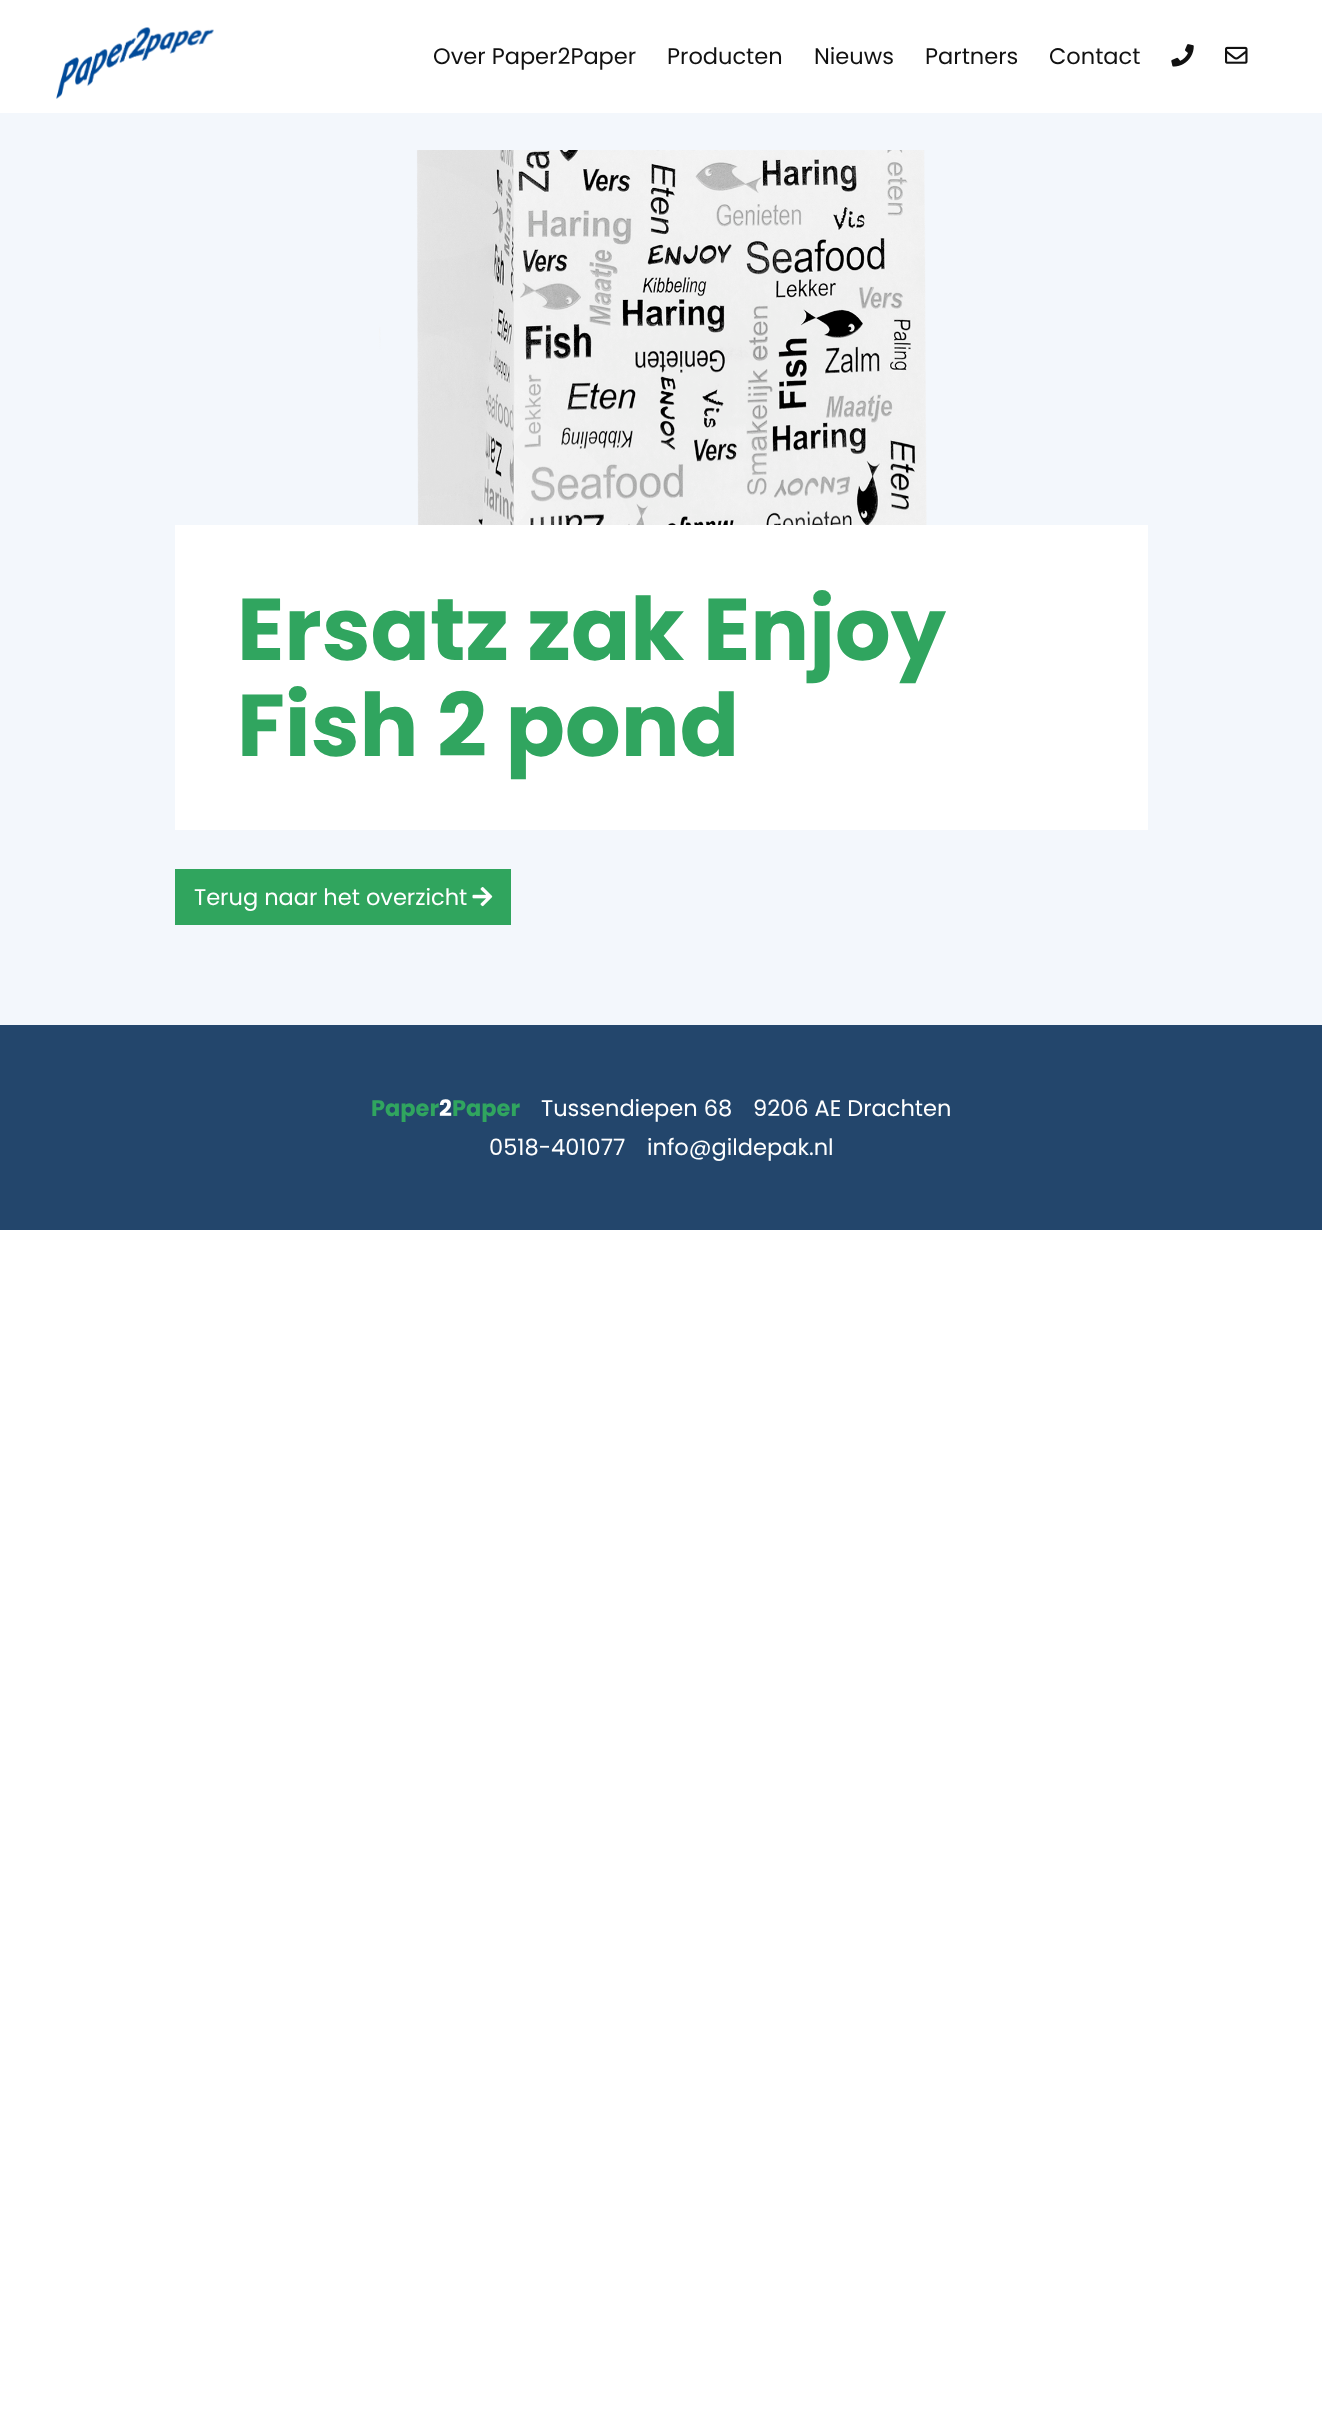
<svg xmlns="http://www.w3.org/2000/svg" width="1322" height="2436">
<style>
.a{font:22.5px Poppins;fill:#111}
.b{font:bold 87.5px Poppins;fill:#30a55f}
.c{font:22.5px Poppins;fill:#fff}
.d{font:bold 22.5px Poppins;fill:#30a55f}
.e{font:bold 22.5px Poppins;fill:#fff}
</style>
<rect width="100%" height="100%" fill="#fff"/>
<image href="1.png" x="56" y="27" width="158" height="72"/>
<image href="2.png" x="1171" y="44" width="23" height="23"/>
<image href="3.png" x="1225" y="46" width="23" height="18"/>
<path fill="#f3f7fc" d="M0 113h1322v912H0z"/>
<image href="4.png" x="379" y="150" width="548" height="375"/>
<path fill="#fff" d="M175 525h973v305H175z"/>
<path fill="#30a55e" d="M175 869h336v56H175z"/>
<image href="5.png" x="472" y="887" width="21" height="20"/>
<path fill="#23466c" d="M0 1025h1322v205H0z"/>
<text class="a" x="433" y="64">Over Paper2Paper</text>
<text class="a" x="667" y="64">Producten</text>
<text class="a" x="814" y="64">Nieuws</text>
<text class="a" x="925" y="64">Partners</text>
<text class="a" x="1049" y="64">Contact</text>
<text class="b" x="237" y="660">Ersatz zak Enjoy</text>
<text class="b" x="237" y="756">Fish 2 pond</text>
<text class="c" x="194" y="905">Terug naar het overzicht</text>
<text class="d" x="371" y="1116">Paper</text>
<text class="e" x="439" y="1116">2</text>
<text class="d" x="452" y="1116">Paper</text>
<text class="c" x="541" y="1116">Tussendiepen 68</text>
<text class="c" x="753" y="1116">9206 AE Drachten</text>
<text class="c" x="489" y="1155">0518-401077</text>
<text class="c" x="647" y="1155">info@gildepak.nl</text>
</svg>
